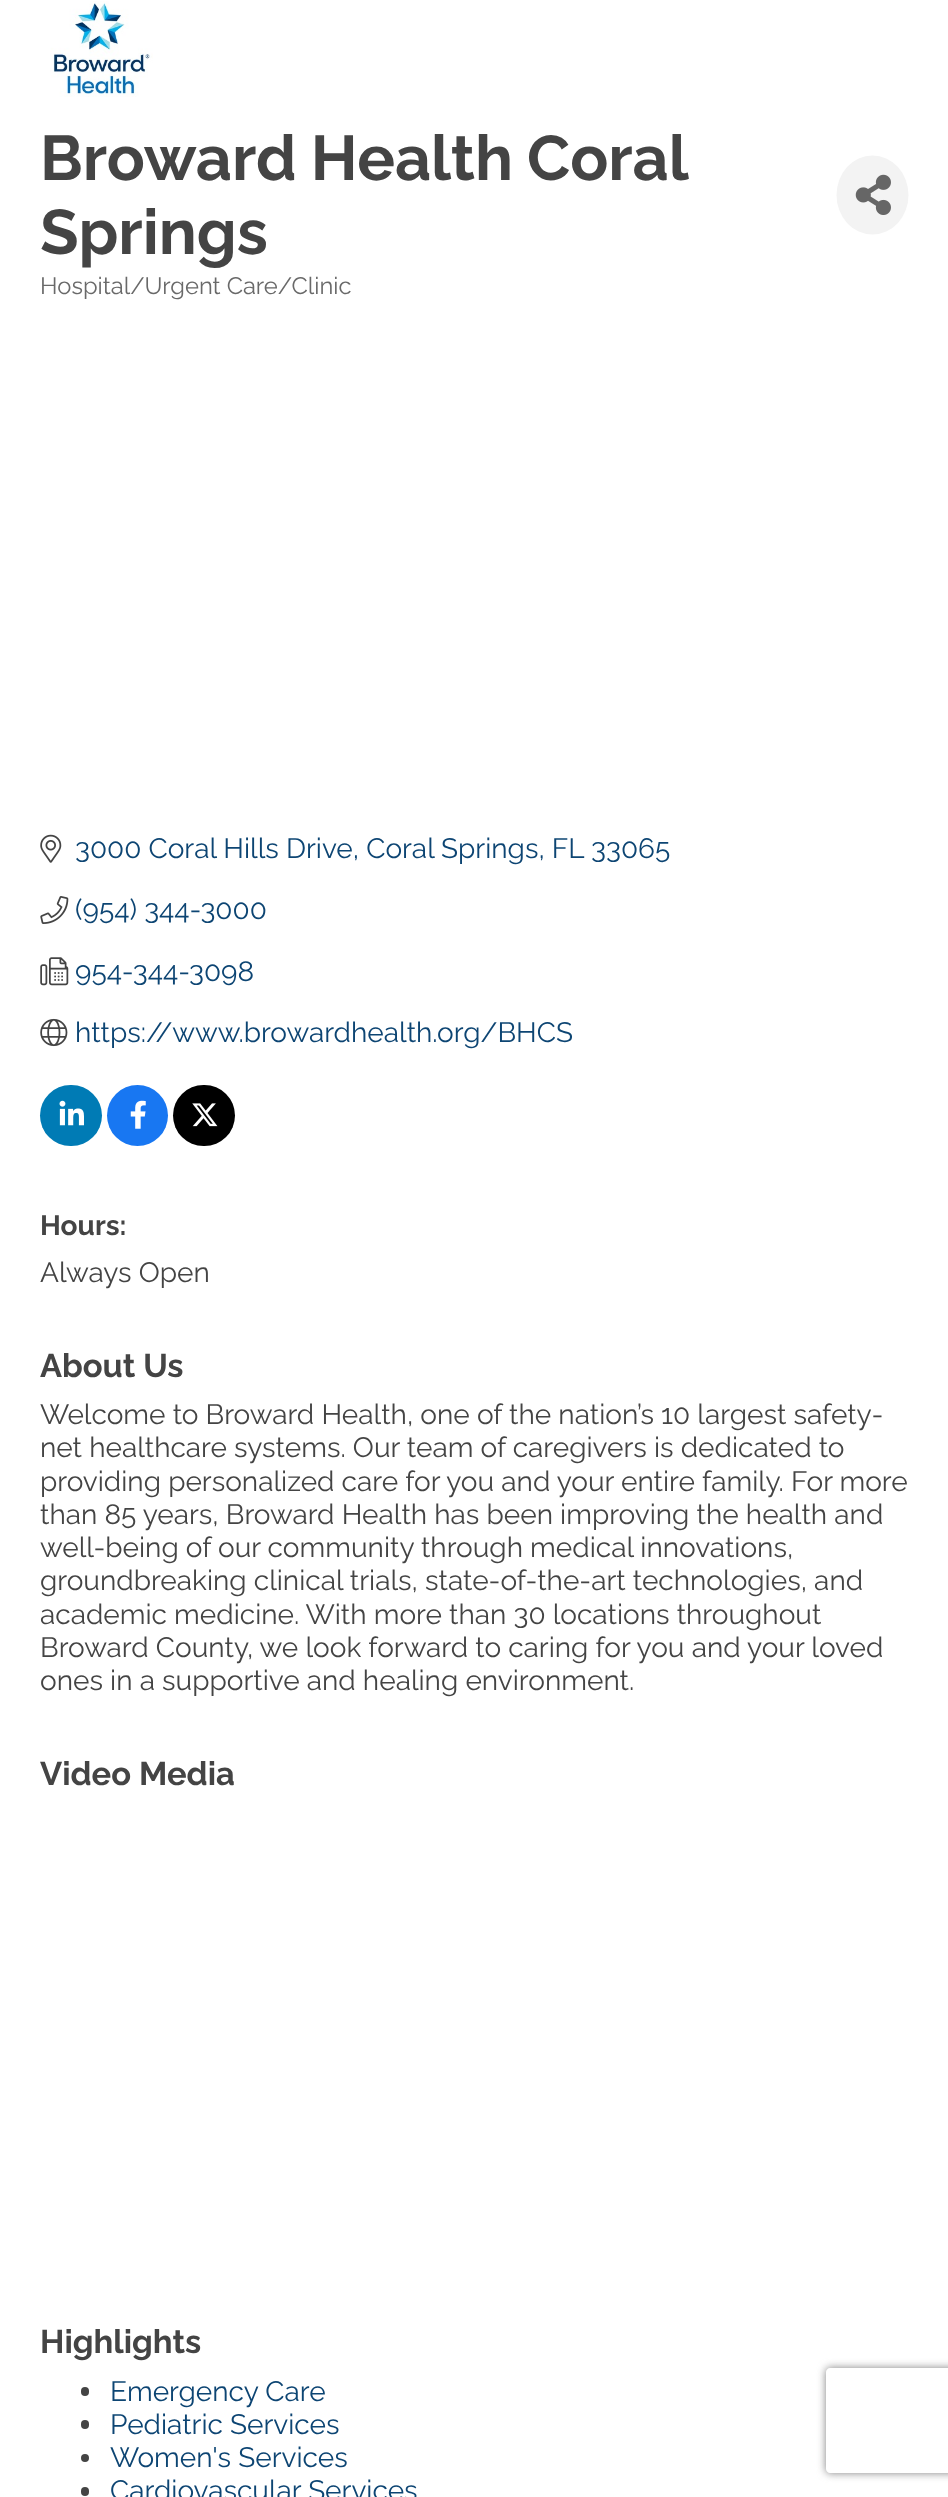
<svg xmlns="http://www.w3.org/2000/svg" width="948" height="2497">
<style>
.a{font:bold 63px Raleway;fill:#444}
.b{font:23.75px Raleway;fill:#696969}
.c{font:28px Raleway;fill:#0d4573}
.d{font:bold 28px Raleway;fill:#444}
.e{font:28px Raleway;fill:#444}
.f{font:bold 32.75px Raleway;fill:#444}
</style>
<defs>
<clipPath id="clip1"><path d="M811 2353h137v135h-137zm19 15h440c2 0 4 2 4 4v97c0 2-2 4-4 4h-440c-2 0-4-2-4-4v-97c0-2 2-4 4-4z" clip-rule="evenodd"/></clipPath>
</defs>
<rect width="100%" height="100%" fill="#fff"/>
<image href="1.png" x="50" y="1" width="103" height="96"/>
<ellipse fill="#f3f3f3" cx="872.5" cy="195" rx="36" ry="39.5"/>
<image href="2.png" x="855" y="174" width="36" height="41"/>
<image href="3.png" x="40" y="834" width="22" height="29"/>
<image href="4.png" x="40" y="896" width="29" height="28"/>
<image href="5.png" x="40" y="957" width="29" height="29"/>
<image href="6.png" x="40" y="1018" width="28" height="29"/>
<rect fill="#007bb5" x="40" y="1085" width="62" height="61" rx="30.5"/>
<image href="7.png" x="59" y="1100" width="25" height="26"/>
<circle fill="#1877f2" cx="137.5" cy="1115.5" r="30.5"/>
<image href="8.png" x="130" y="1100" width="16" height="29"/>
<rect fill="#000" x="173" y="1085" width="62" height="61" rx="30.5"/>
<image href="9.png" x="192" y="1103" width="26" height="24"/>
<rect fill="#444" x="81" y="2387" width="8" height="9" rx="4"/>
<rect fill="#444" x="81" y="2420" width="8" height="9" rx="4"/>
<circle fill="#444" cx="85" cy="2458" r="4"/>
<rect fill="#444" x="81" y="2487" width="8" height="9" rx="4"/>
<g clip-path="url(#clip1)">
<rect fill="#808080" filter="blur(4.5px)" x="826" y="2368" width="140" height="105" rx="4"/>
</g>
<text class="a" x="40" y="180" word-spacing="-1">Broward Health Coral</text>
<text class="a" x="40" y="254">Springs</text>
<text class="b" x="40" y="294">Hospital/Urgent Care/Clinic</text>
<text class="c" x="75" y="858">3000 Coral Hills Drive, Coral Springs, FL</text>
<text class="c" x="591" y="858">33065</text>
<text class="c" x="75" y="919">(954) 344-3000</text>
<text class="c" x="75" y="981">954-344-3098</text>
<text class="c" x="75" y="1042">https://www.browardhealth.org/BHCS</text>
<text class="d" x="40" y="1235">Hours:</text>
<text class="e" x="40" y="1282">Always Open</text>
<text class="f" x="40" y="1377">About Us</text>
<text class="e" x="40" y="1424">Welcome to Broward Health, one of the nation’s 10 largest safety-</text>
<text class="e" x="40" y="1457">net healthcare systems. Our team of caregivers is dedicated to</text>
<text class="e" x="40" y="1491">providing personalized care for you and your entire family. For more</text>
<text class="e" x="40" y="1524">than 85 years, Broward Health has been improving the health and</text>
<text class="e" x="40" y="1557">well-being of our community through medical innovations,</text>
<text class="e" x="40" y="1590">groundbreaking clinical trials, state-of-the-art technologies, and</text>
<text class="e" x="40" y="1624">academic medicine. With more than 30 locations throughout</text>
<text class="e" x="40" y="1657">Broward County, we look forward to caring for you and your loved</text>
<text class="e" x="40" y="1690">ones in a supportive and healing environment.</text>
<text class="f" x="40" y="1785">Video Media</text>
<text class="f" x="40" y="2353">Highlights</text>
<text class="c" x="110" y="2401">Emergency Care</text>
<text class="c" x="110" y="2434">Pediatric Services</text>
<text class="c" x="110" y="2467">Women's Services</text>
<text class="c" x="110" y="2500">Cardiovascular Services</text>
</svg>
